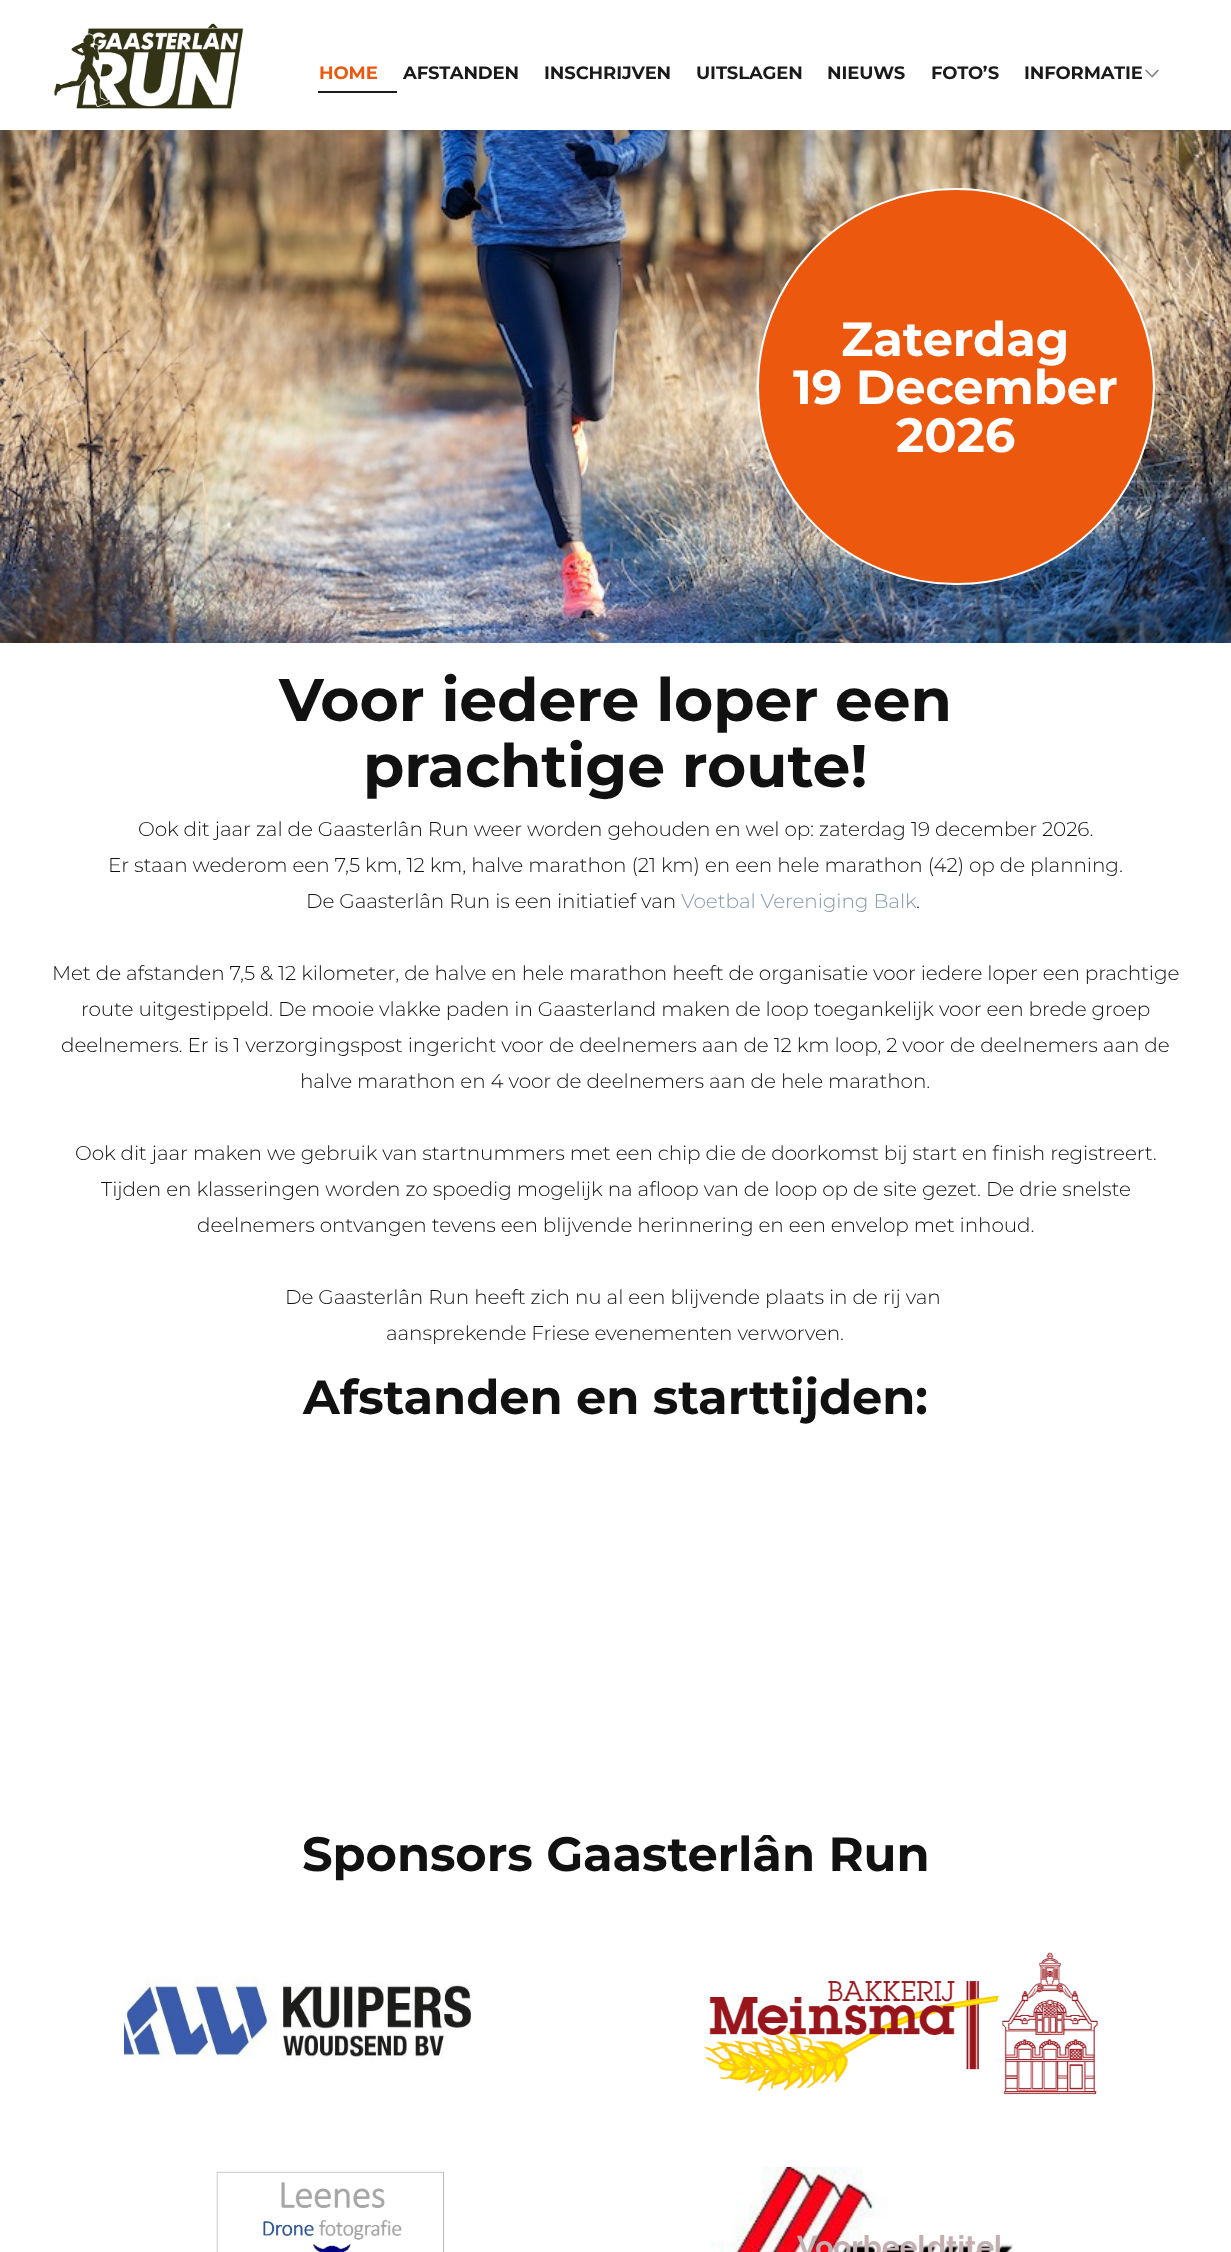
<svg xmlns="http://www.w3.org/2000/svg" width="1231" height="2252">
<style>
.a{font:bold 18px Montserrat;letter-spacing:-0.1px;fill:#ec590e}
.b{font:bold 18px Montserrat;letter-spacing:-0.1px;fill:#1a1a1a}
.c{font:bold 48px Montserrat;letter-spacing:-0.1px;fill:#fff}
.d{font:bold 60px Montserrat;letter-spacing:-0.1px;fill:#111}
.e{font:300 20px Montserrat;letter-spacing:-0.1px;fill:#111}
.f{font:300 20px Montserrat;letter-spacing:-0.1px;fill:#8599ab}
.g{font:bold 48px Montserrat;letter-spacing:-0.1px;fill:#111}
.h{font:bold 30px Raleway;letter-spacing:-0.1px;fill:#c3aeb0}
</style>
<rect width="100%" height="100%" fill="#fff"/>
<image href="1.png" x="54" y="23" width="190" height="86"/>
<path fill="#1a1a1a" d="M318 91h79v2H318z"/>
<image href="2.png" x="1145" y="69" width="14" height="9"/>
<image href="3.png" x="0" y="130" width="1231" height="513"/>
<rect fill="#ec590e" stroke="#fff" stroke-width="2" x="758" y="189" width="396" height="395" rx="197.5"/>
<image href="4.png" x="124" y="1976" width="349" height="84"/>
<image href="5.png" x="704" y="1952" width="394" height="143"/>
<image href="6.png" x="216" y="2171" width="228" height="81"/>
<image href="7.png" x="711" y="2167" width="302" height="85"/>
<text class="a" x="319" y="79">HOME</text>
<text class="b" x="403" y="79">AFSTANDEN</text>
<text class="b" x="544" y="79">INSCHRIJVEN</text>
<text class="b" x="696" y="79">UITSLAGEN</text>
<text class="b" x="827" y="79">NIEUWS</text>
<text class="b" x="931" y="79">FOTO’S</text>
<text class="b" x="1024" y="79">INFORMATIE</text>
<text class="c" x="841" y="356">Zaterdag</text>
<text class="c" x="793" y="404">19 December</text>
<text class="c" x="896" y="452">2026</text>
<text class="d" x="279" y="721">Voor iedere loper een</text>
<text class="d" x="363" y="787">prachtige route!</text>
<text class="e" x="138" y="836">Ook dit jaar zal de Gaasterlân Run weer worden gehouden en wel op: zaterdag 19 december 2026.</text>
<text class="e" x="108" y="872">Er staan wederom een 7,5 km, 12 km, halve marathon (21 km) en een hele marathon (42) op de planning.</text>
<text class="e" x="306" y="908">De Gaasterlân Run is een initiatief van</text>
<text class="f" x="681" y="908">Voetbal Vereniging Balk</text>
<text class="e" x="916" y="908">.</text>
<text class="e" x="52" y="980">Met de afstanden 7,5 &amp; 12 kilometer, de halve en hele marathon heeft de organisatie voor iedere loper een prachtige</text>
<text class="e" x="81" y="1016">route uitgestippeld. De mooie vlakke paden in Gaasterland maken de loop toegankelijk voor een brede groep</text>
<text class="e" x="61" y="1052">deelnemers. Er is 1 verzorgingspost ingericht voor de deelnemers aan de 12 km loop, 2 voor de deelnemers aan de</text>
<text class="e" x="300" y="1088">halve marathon en 4 voor de deelnemers aan de hele marathon.</text>
<text class="e" x="75" y="1160">Ook dit jaar maken we gebruik van startnummers met een chip die de doorkomst bij start en finish registreert.</text>
<text class="e" x="101" y="1196">Tijden en klasseringen worden zo spoedig mogelijk na afloop van de loop op de site gezet. De drie snelste</text>
<text class="e" x="197" y="1232">deelnemers ontvangen tevens een blijvende herinnering en een envelop met inhoud.</text>
<text class="e" x="285" y="1304">De Gaasterlân Run heeft zich nu al een blijvende plaats in de rij van</text>
<text class="e" x="386" y="1340">aansprekende Friese evenementen verworven.</text>
<text class="g" x="303" y="1414">Afstanden en starttijden:</text>
<text class="g" x="302" y="1871">Sponsors Gaasterlân Run</text>
<text class="h" x="797" y="2257">Voorbeeldtitel</text>
</svg>
